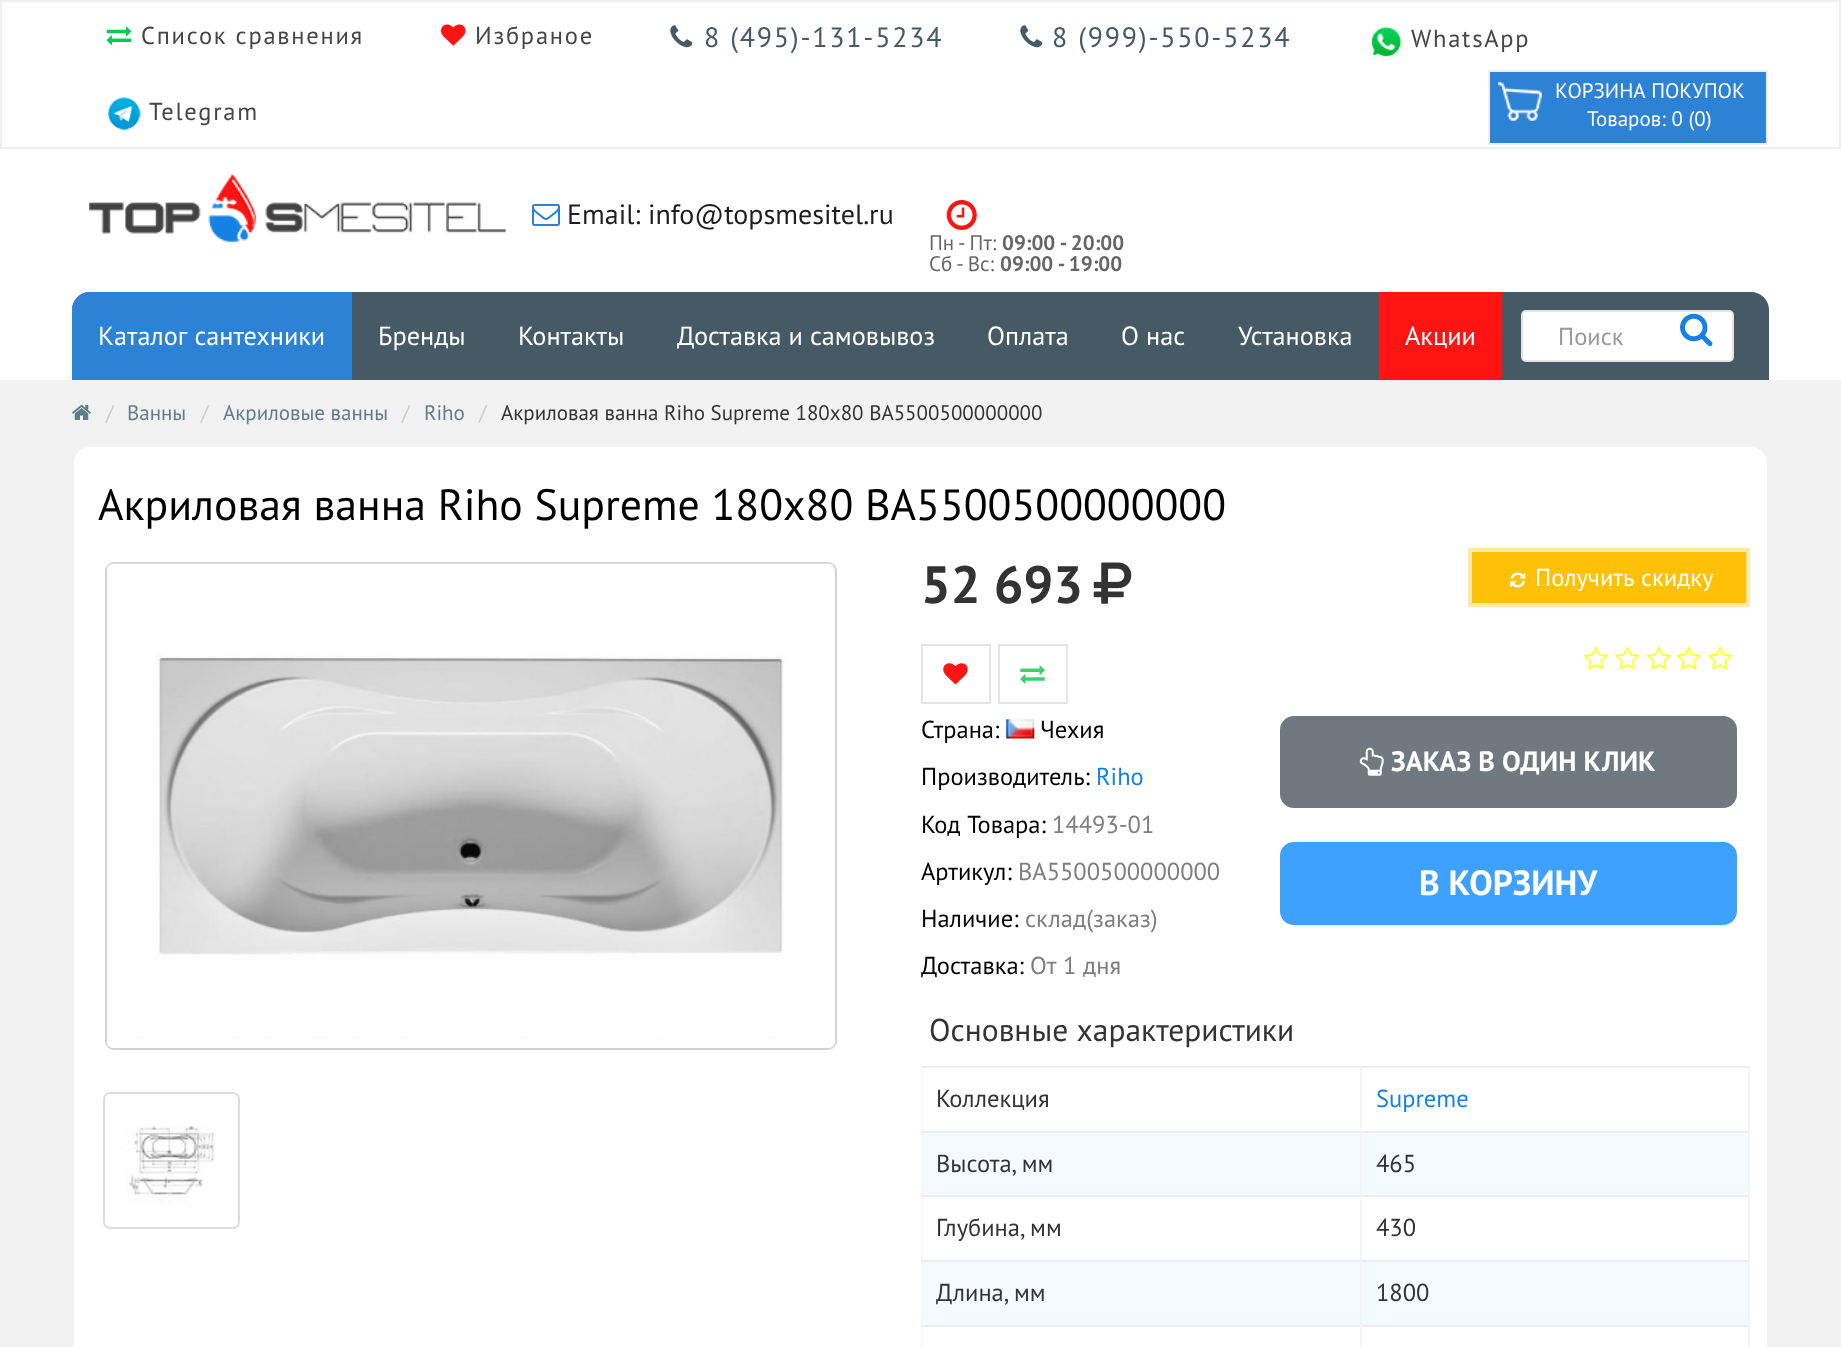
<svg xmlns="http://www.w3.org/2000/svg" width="1841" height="1347">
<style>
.a{font:24.5px PT Sans;letter-spacing:1.75px;fill:#454545}
.b{font:28px PT Sans;letter-spacing:1.75px;fill:#455a64}
.c{font:21px PT Sans;fill:#fff}
.d{font:28px PT Sans;fill:#1e1e1e}
.e{font:21px PT Sans;fill:#666}
.f{font:bold 21px PT Sans;fill:#666}
.g{font:26.25px PT Sans;fill:#fff}
.h{font:24.5px PT Sans;fill:#999}
.i{font:21px PT Sans;fill:#ccc}
.j{font:21px PT Sans;fill:#607d8b}
.k{font:21px PT Sans;fill:#333}
.l{font:43.75px PT Sans;fill:#000}
.m{font:bold 52.5px PT Sans;fill:#333}
.n{font:24.5px PT Sans;fill:#fff}
.o{font:24.5px PT Sans;fill:#000}
.p{font:24.5px PT Sans;fill:#1681e5}
.q{font:24.5px PT Sans;fill:#7e7e7e}
.r{font:bold 28px PT Sans;fill:#fff}
.s{font:bold 35px PT Sans;fill:#fff}
.t{font:31.5px PT Sans;fill:#333}
.u{font:24.5px PT Sans;fill:#333}
</style>
<rect width="100%" height="100%" fill="#f2f2f2"/>
<path fill="#fff" d="M0 2h1841v378H0z"/>
<path fill="none" stroke="#f0f0f0" stroke-width="2" d="M1 1h1839v147H1z"/>
<image href="1.png" x="106" y="26" width="26" height="19"/>
<image href="2.png" x="441" y="24" width="25" height="22"/>
<image href="3.png" x="670" y="25" width="23" height="23"/>
<image href="3.png" x="1020" y="25" width="23" height="23"/>
<image href="4.png" x="1368" y="26" width="36" height="34"/>
<image href="5.png" x="107" y="97" width="34" height="34"/>
<path fill="#2c82d4" stroke="#efefef" stroke-width="2" d="M1489 71h278v73H1489z"/>
<image href="6.png" x="1498" y="82" width="44" height="39"/>
<image href="7.png" x="89" y="174" width="417" height="69"/>
<image href="8.png" x="532" y="204" width="28" height="22"/>
<image href="9.png" x="946" y="200" width="31" height="30"/>
<path fill="#455a64" d="M90 292h1661c10 0 18 8 18 18v70h-1697v-70c0-10 8-18 18-18z"/>
<path fill="#2c82d4" d="M90 292h262v88h-280v-70c0-10 8-18 18-18z"/>
<path fill="#ff1414" d="M1379 292h123v88H1379z"/>
<rect fill="#fff" stroke="#e4e4e4" stroke-width="2" x="1522" y="311" width="211" height="50" rx="4"/>
<image href="10.png" x="1680" y="313" width="33" height="34"/>
<image href="11.png" x="72" y="405" width="19" height="15"/>
<rect fill="#fff" stroke="#f3f3f3" stroke-width="2" x="73" y="446" width="1695" height="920" rx="17"/>
<rect fill="none" stroke="#d3d3d3" stroke-width="2" x="106" y="563" width="730" height="486" rx="8"/>
<image href="12.png" x="107" y="563" width="728" height="485"/>
<rect fill="none" stroke="#ddd" stroke-width="2" x="104" y="1093" width="135" height="135" rx="6"/>
<image href="13.png" x="125" y="1126" width="90" height="78"/>
<image href="14.png" x="1093" y="562" width="39" height="42"/>
<path fill="#ffc107" stroke="#ffe9a6" stroke-width="4" d="M1470 550h278v55H1470z"/>
<image href="15.png" x="1510" y="572" width="16" height="16"/>
<path fill="none" stroke="#e5e5e5" stroke-width="2" d="M922 645h68v58H922z"/>
<image href="16.png" x="943" y="663" width="25" height="22"/>
<path fill="none" stroke="#e5e5e5" stroke-width="2" d="M999 645h68v58H999z"/>
<image href="17.png" x="1020" y="665" width="25" height="19"/>
<image href="18.png" x="1583" y="646" width="26" height="24"/>
<image href="19.png" x="1615" y="646" width="25" height="24"/>
<image href="18.png" x="1646" y="646" width="26" height="24"/>
<image href="20.png" x="1676" y="646" width="25" height="24"/>
<image href="21.png" x="1708" y="646" width="25" height="24"/>
<image href="22.png" x="1006" y="719" width="29" height="20"/>
<rect fill="#717980" stroke="#fff" stroke-width="4" x="1278" y="714" width="461" height="96" rx="16"/>
<image href="23.png" x="1359" y="747" width="25" height="29"/>
<rect fill="#3ea1ff" stroke="#fff" stroke-width="4" x="1278" y="840" width="461" height="87" rx="16"/>
<path fill="#f8f8f8" d="M921 1066h2v281H921z"/>
<path fill="#eee" d="M921 1066h829v2H921z"/>
<path fill="#f4faff" d="M923 1133h825v62H923z"/>
<path fill="#eee" d="M921 1131h829v2H921z"/>
<path fill="#eee" d="M921 1195h829v2H921z"/>
<path fill="#f4faff" d="M923 1262h825v63H923z"/>
<path fill="#eee" d="M921 1260h829v2H921z"/>
<path fill="#eee" d="M921 1325h829v2H921z"/>
<path fill="#f5f5f5" d="M1360 1325h2v22H1360z"/>
<path fill="#f5f5f5" d="M1360 1260h2v67H1360z"/>
<path fill="#f5f5f5" d="M1360 1195h2v67H1360z"/>
<path fill="#f5f5f5" d="M1360 1131h2v66H1360z"/>
<path fill="#f5f5f5" d="M1360 1066h2v66H1360z"/>
<path fill="#f5f5f5" d="M1748 1325h2v22H1748z"/>
<path fill="#f5f5f5" d="M1748 1260h2v67H1748z"/>
<path fill="#f5f5f5" d="M1748 1195h2v67H1748z"/>
<path fill="#f5f5f5" d="M1748 1131h2v66H1748z"/>
<path fill="#f5f5f5" d="M1748 1066h2v66H1748z"/>
<text class="a" x="141" y="44">Список сравнения</text>
<text class="a" x="475" y="44">Избраное</text>
<text class="b" x="704" y="47">8 (495)-131-5234</text>
<text class="b" x="1052" y="47">8 (999)-550-5234</text>
<text class="a" x="1411" y="47">WhatsApp</text>
<text class="a" x="149" y="120">Telegram</text>
<text class="c" x="1555" y="98">КОРЗИНА ПОКУПОК</text>
<text class="c" x="1587" y="126">Товаров: 0 (0)</text>
<text class="d" x="567" y="224">Email: info@topsmesitel.ru</text>
<text class="e" x="929" y="250">Пн - Пт:</text>
<text class="f" x="1002" y="250">09:00 - 20:00</text>
<text class="e" x="929" y="271">Сб - Вс:</text>
<text class="f" x="1000" y="271">09:00 - 19:00</text>
<text class="g" x="98" y="345">Каталог сантехники</text>
<text class="g" x="378" y="345">Бренды</text>
<text class="g" x="518" y="345">Контакты</text>
<text class="g" x="677" y="345">Доставка и самовывоз</text>
<text class="g" x="987" y="345">Оплата</text>
<text class="g" x="1121" y="345">О нас</text>
<text class="g" x="1238" y="345">Установка</text>
<text class="g" x="1405" y="345">Акции</text>
<text class="h" x="1558" y="345">Поиск</text>
<text class="i" x="106" y="420">/</text>
<text class="j" x="127" y="420">Ванны</text>
<text class="i" x="201" y="420">/</text>
<text class="j" x="223" y="420">Акриловые ванны</text>
<text class="i" x="402" y="420">/</text>
<text class="j" x="424" y="420">Riho</text>
<text class="i" x="479" y="420">/</text>
<text class="k" x="501" y="420">Акриловая ванна Riho Supreme 180x80 BA5500500000000</text>
<text class="l" x="98" y="520">Акриловая ванна Riho Supreme 180x80 BA5500500000000</text>
<text class="m" x="921" y="603">52 693</text>
<text class="n" x="1535" y="586">Получить скидку</text>
<text class="o" x="921" y="738">Страна:</text>
<text class="o" x="1040" y="738">Чехия</text>
<text class="o" x="921" y="785">Производитель:</text>
<text class="p" x="1096" y="785">Riho</text>
<text class="o" x="921" y="833">Код Товара:</text>
<text class="q" x="1052" y="833">14493-01</text>
<text class="o" x="921" y="880">Артикул:</text>
<text class="q" x="1018" y="880">BA5500500000000</text>
<text class="o" x="921" y="927">Наличие:</text>
<text class="q" x="1025" y="927">склад(заказ)</text>
<text class="o" x="921" y="974">Доставка:</text>
<text class="q" x="1030" y="974">От 1 дня</text>
<text class="r" x="1391" y="771">ЗАКАЗ В ОДИН КЛИК</text>
<text class="s" x="1419" y="895">В КОРЗИНУ</text>
<text class="t" x="929" y="1041">Основные характеристики</text>
<text class="u" x="936" y="1107">Коллекция</text>
<text class="p" x="1376" y="1107">Supreme</text>
<text class="u" x="936" y="1172">Высота, мм</text>
<text class="u" x="1376" y="1172">465</text>
<text class="u" x="936" y="1236">Глубина, мм</text>
<text class="u" x="1376" y="1236">430</text>
<text class="u" x="936" y="1301">Длина, мм</text>
<text class="u" x="1376" y="1301">1800</text>
</svg>
